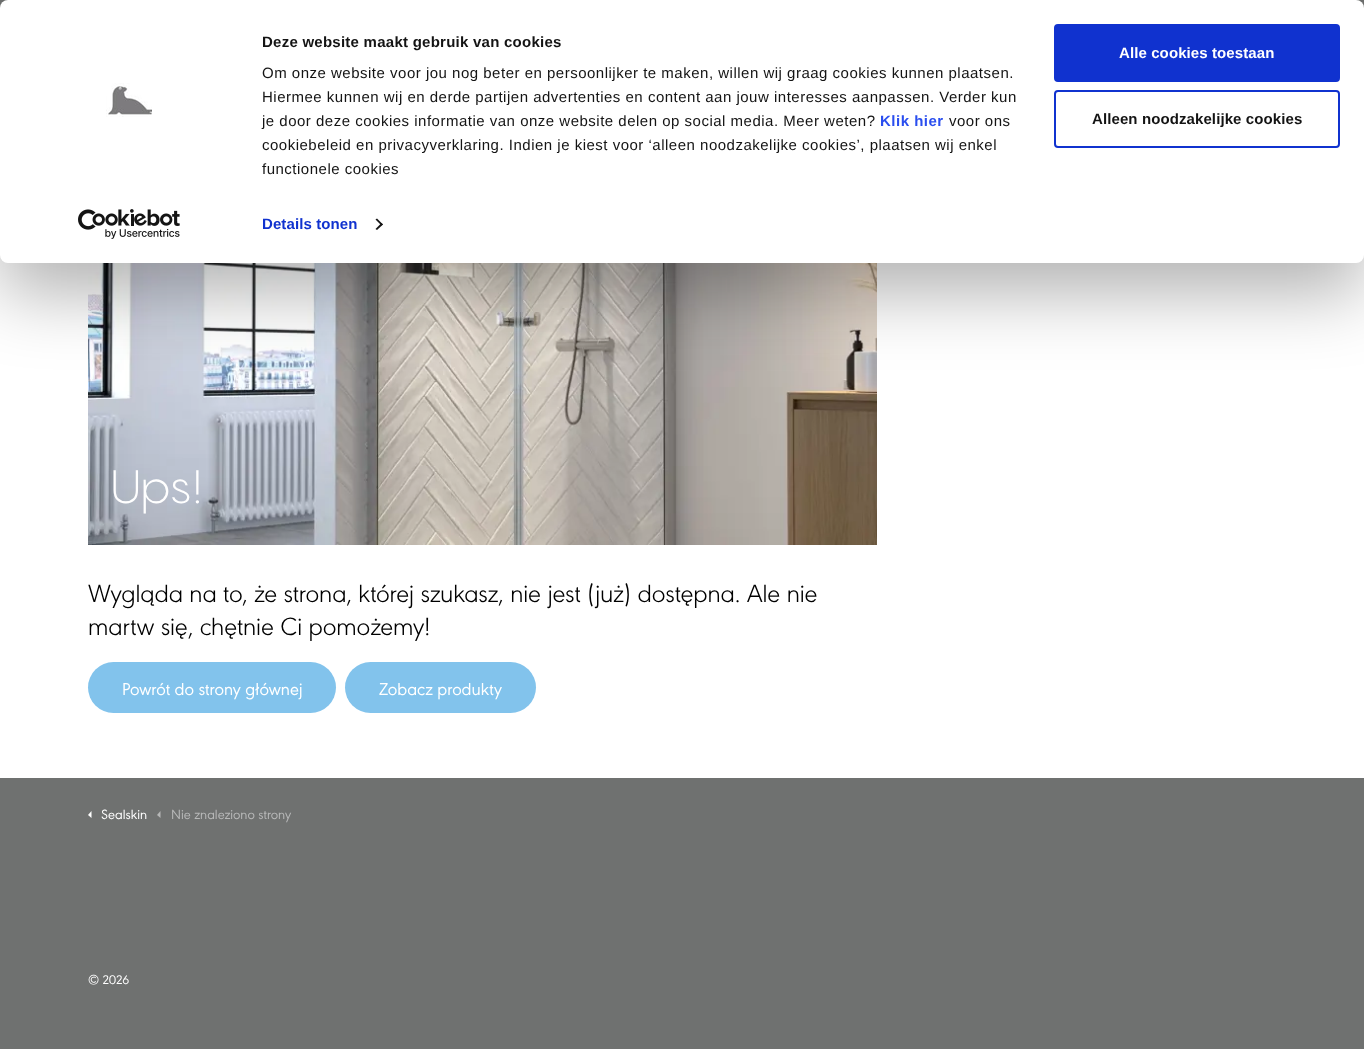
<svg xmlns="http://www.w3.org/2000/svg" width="1364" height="1050">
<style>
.a{font:bold 15px Liberation Sans;letter-spacing:0.25px;fill:#141414}
.b{font:15px Liberation Sans;letter-spacing:0.5px;fill:#141414}
.c{font:bold 15px Liberation Sans;letter-spacing:0.5px;fill:#2a4eef}
.d{font:bold 15px Liberation Sans;letter-spacing:0.1px;fill:#1032cf}
.e{font:bold 15px Liberation Sans;letter-spacing:0.1px;fill:#fff}
.f{font:bold 15px Liberation Sans;letter-spacing:0.1px;fill:#141414}
.g{font:300 46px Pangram;fill:#fff}
.h{font:300 26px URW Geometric;letter-spacing:-0.15px;fill:#000}
.i{font:18px URW Geometric;fill:#fff}
.j{font:14px URW Geometric;fill:#fff}
.k{font:14px URW Geometric;fill:#b7b8b8}
.l{font:13px URW Geometric;fill:#fff}
</style>
<rect width="100%" height="100%" fill="#fff"/>
<path fill="#6f7170" d="M0 0h1364v8H0z"/>
<image href="3.png" x="88" y="263" width="789" height="282"/>
<rect fill="#0000004d" filter="blur(35px)" y="30" width="1364" height="263" rx="8"/>
<rect fill="#fff" width="1364" height="263" rx="8"/>
<image href="1.png" x="106" y="83" width="46" height="34"/>
<image href="2.png" x="78" y="209" width="102" height="30"/>
<path fill="#141414" d="M377 218.5l6 6l-1.5 1l-6-6z"/>
<path fill="#141414" d="M381.5 223l1.5 1.5l-6 5.5l-1.5-1z"/>
<rect fill="#1032cf" stroke="#1032cf" stroke-width="2" x="1055" y="25" width="284" height="56" rx="3"/>
<rect fill="none" stroke="#1032cf" stroke-width="2" x="1055" y="91" width="284" height="56" rx="3"/>
<rect fill="#82c3ec" x="88" y="662" width="248" height="51" rx="25.5"/>
<rect fill="#82c3ec" x="345" y="662" width="191" height="51" rx="25.5"/>
<path fill="#6f7170" d="M0 778h1364v271H0z"/>
<path fill="#fff" d="M91.5 811v7l-3.5-3z"/>
<path fill="#b7b8b8" d="M160.5 811v7l-3.5-3z"/>
<text class="a" x="262" y="47">Deze website maakt gebruik van cookies</text>
<text class="b" x="262" y="78">Om onze website voor jou nog beter en persoonlijker te maken, willen wij graag cookies kunnen plaatsen.</text>
<text class="b" x="262" y="102">Hiermee kunnen wij en derde partijen advertenties en content aan jouw interesses aanpassen. Verder kun</text>
<text class="b" x="262" y="126">je door deze cookies informatie van onze website delen op social media. Meer weten?</text>
<text class="c" x="880" y="126">Klik hier</text>
<text class="b" x="949" y="126">voor ons</text>
<text class="b" x="262" y="150">cookiebeleid en privacyverklaring. Indien je kiest voor ‘alleen noodzakelijke cookies’, plaatsen wij enkel</text>
<text class="b" x="262" y="174">functionele cookies</text>
<text class="d" x="262" y="229">Details tonen</text>
<text class="e" x="1119" y="58">Alle cookies toestaan</text>
<text class="f" x="1092" y="124">Alleen noodzakelijke cookies</text>
<text class="g" x="110" y="503">Ups!</text>
<text class="h" x="88" y="602">Wygląda na to, że strona, której szukasz, nie jest (już) dostępna. Ale nie</text>
<text class="h" x="88" y="635">martw się, chętnie Ci pomożemy!</text>
<text class="i" x="122" y="695">Powrót do strony głównej</text>
<text class="i" x="379" y="695">Zobacz produkty</text>
<text class="j" x="101" y="819">Sealskin</text>
<text class="k" x="171" y="819">Nie znaleziono strony</text>
<text class="l" x="88" y="984">© 2026</text>
</svg>
